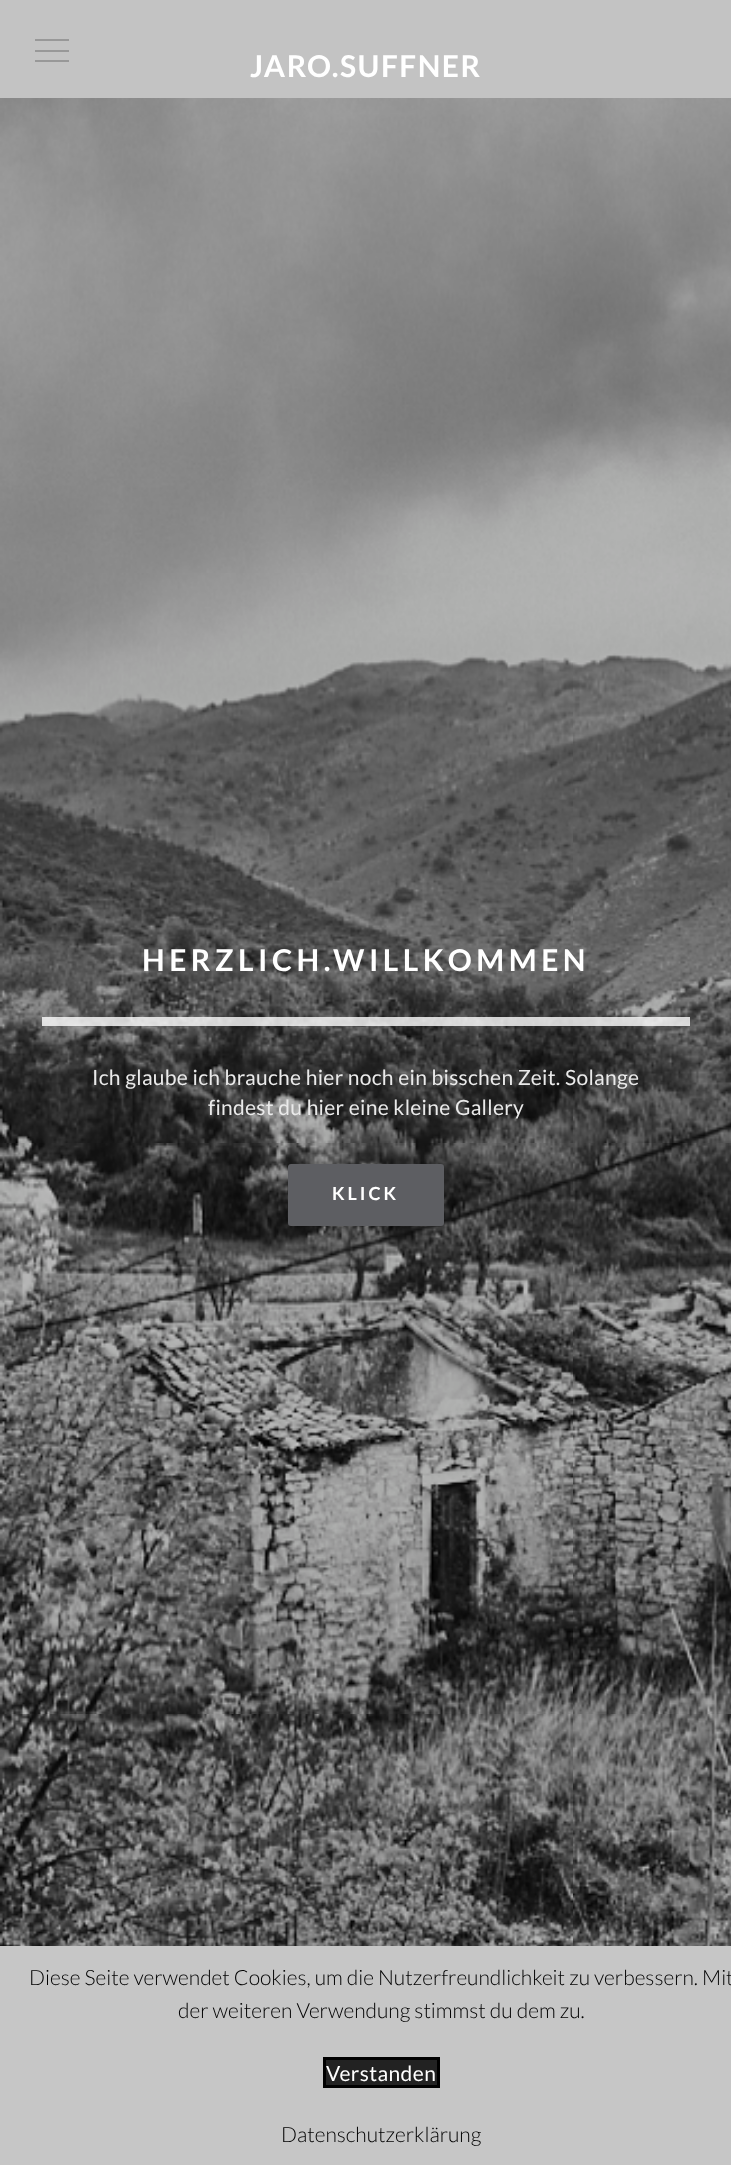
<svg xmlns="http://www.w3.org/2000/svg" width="731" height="2165">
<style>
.a{font:bold 30px Lato;letter-spacing:1.5px;fill:#fff}
.b{font:bold 30px Lato;letter-spacing:4.5px;fill:#fff}
.c{font:21px Lato;letter-spacing:0.3px;fill:#eaeaea}
.d{font:bold 18px Lato;letter-spacing:3px;fill:#fff}
.e{font:300 21px Lato;fill:#000}
.f{font:21px Lato;letter-spacing:0.4px;fill:#fff}
</style>
<rect width="100%" height="100%" fill="#fff"/>
<path fill="#c3c3c3" d="M0 0h731v98H0z"/>
<path fill="#989898" d="M35 50h34v2H35z"/>
<path fill="#989898" d="M35 39h34v2H35z"/>
<path fill="#989898" d="M35 60h34v2H35z"/>
<image href="1.png" x="0" y="98" width="731" height="1848"/>
<path fill="#ffffffcc" d="M42 1017h648v9H42z"/>
<rect fill="#5d5e62" stroke="#5d5e62" stroke-width="3" x="289.5" y="1165.5" width="153" height="59" rx="1.5"/>
<path fill="#c6c6c6" d="M0 1946h731v219H0z"/>
<path fill="#222" stroke="#000" stroke-width="3" d="M324.5 2058.5h114v28H324.5z"/>
<text class="a" x="250" y="77">JARO.SUFFNER</text>
<text class="b" x="142" y="971">HERZLICH.WILLKOMMEN</text>
<text class="c" x="92" y="1085">Ich glaube ich brauche hier noch ein bisschen Zeit.</text>
<text class="c" x="565" y="1085">Solange</text>
<text class="c" x="208" y="1115">findest du hier eine kleine Gallery</text>
<text class="d" x="332" y="1200">KLICK</text>
<text class="e" x="29" y="1985">Diese Seite verwendet Cookies, um die Nutzerfreundlichkeit zu verbessern. Mit</text>
<text class="e" x="178" y="2018">der weiteren Verwendung stimmst du dem zu.</text>
<text class="f" x="326" y="2081">Verstanden</text>
<text class="e" x="281" y="2142">Datenschutzerklärung</text>
</svg>
